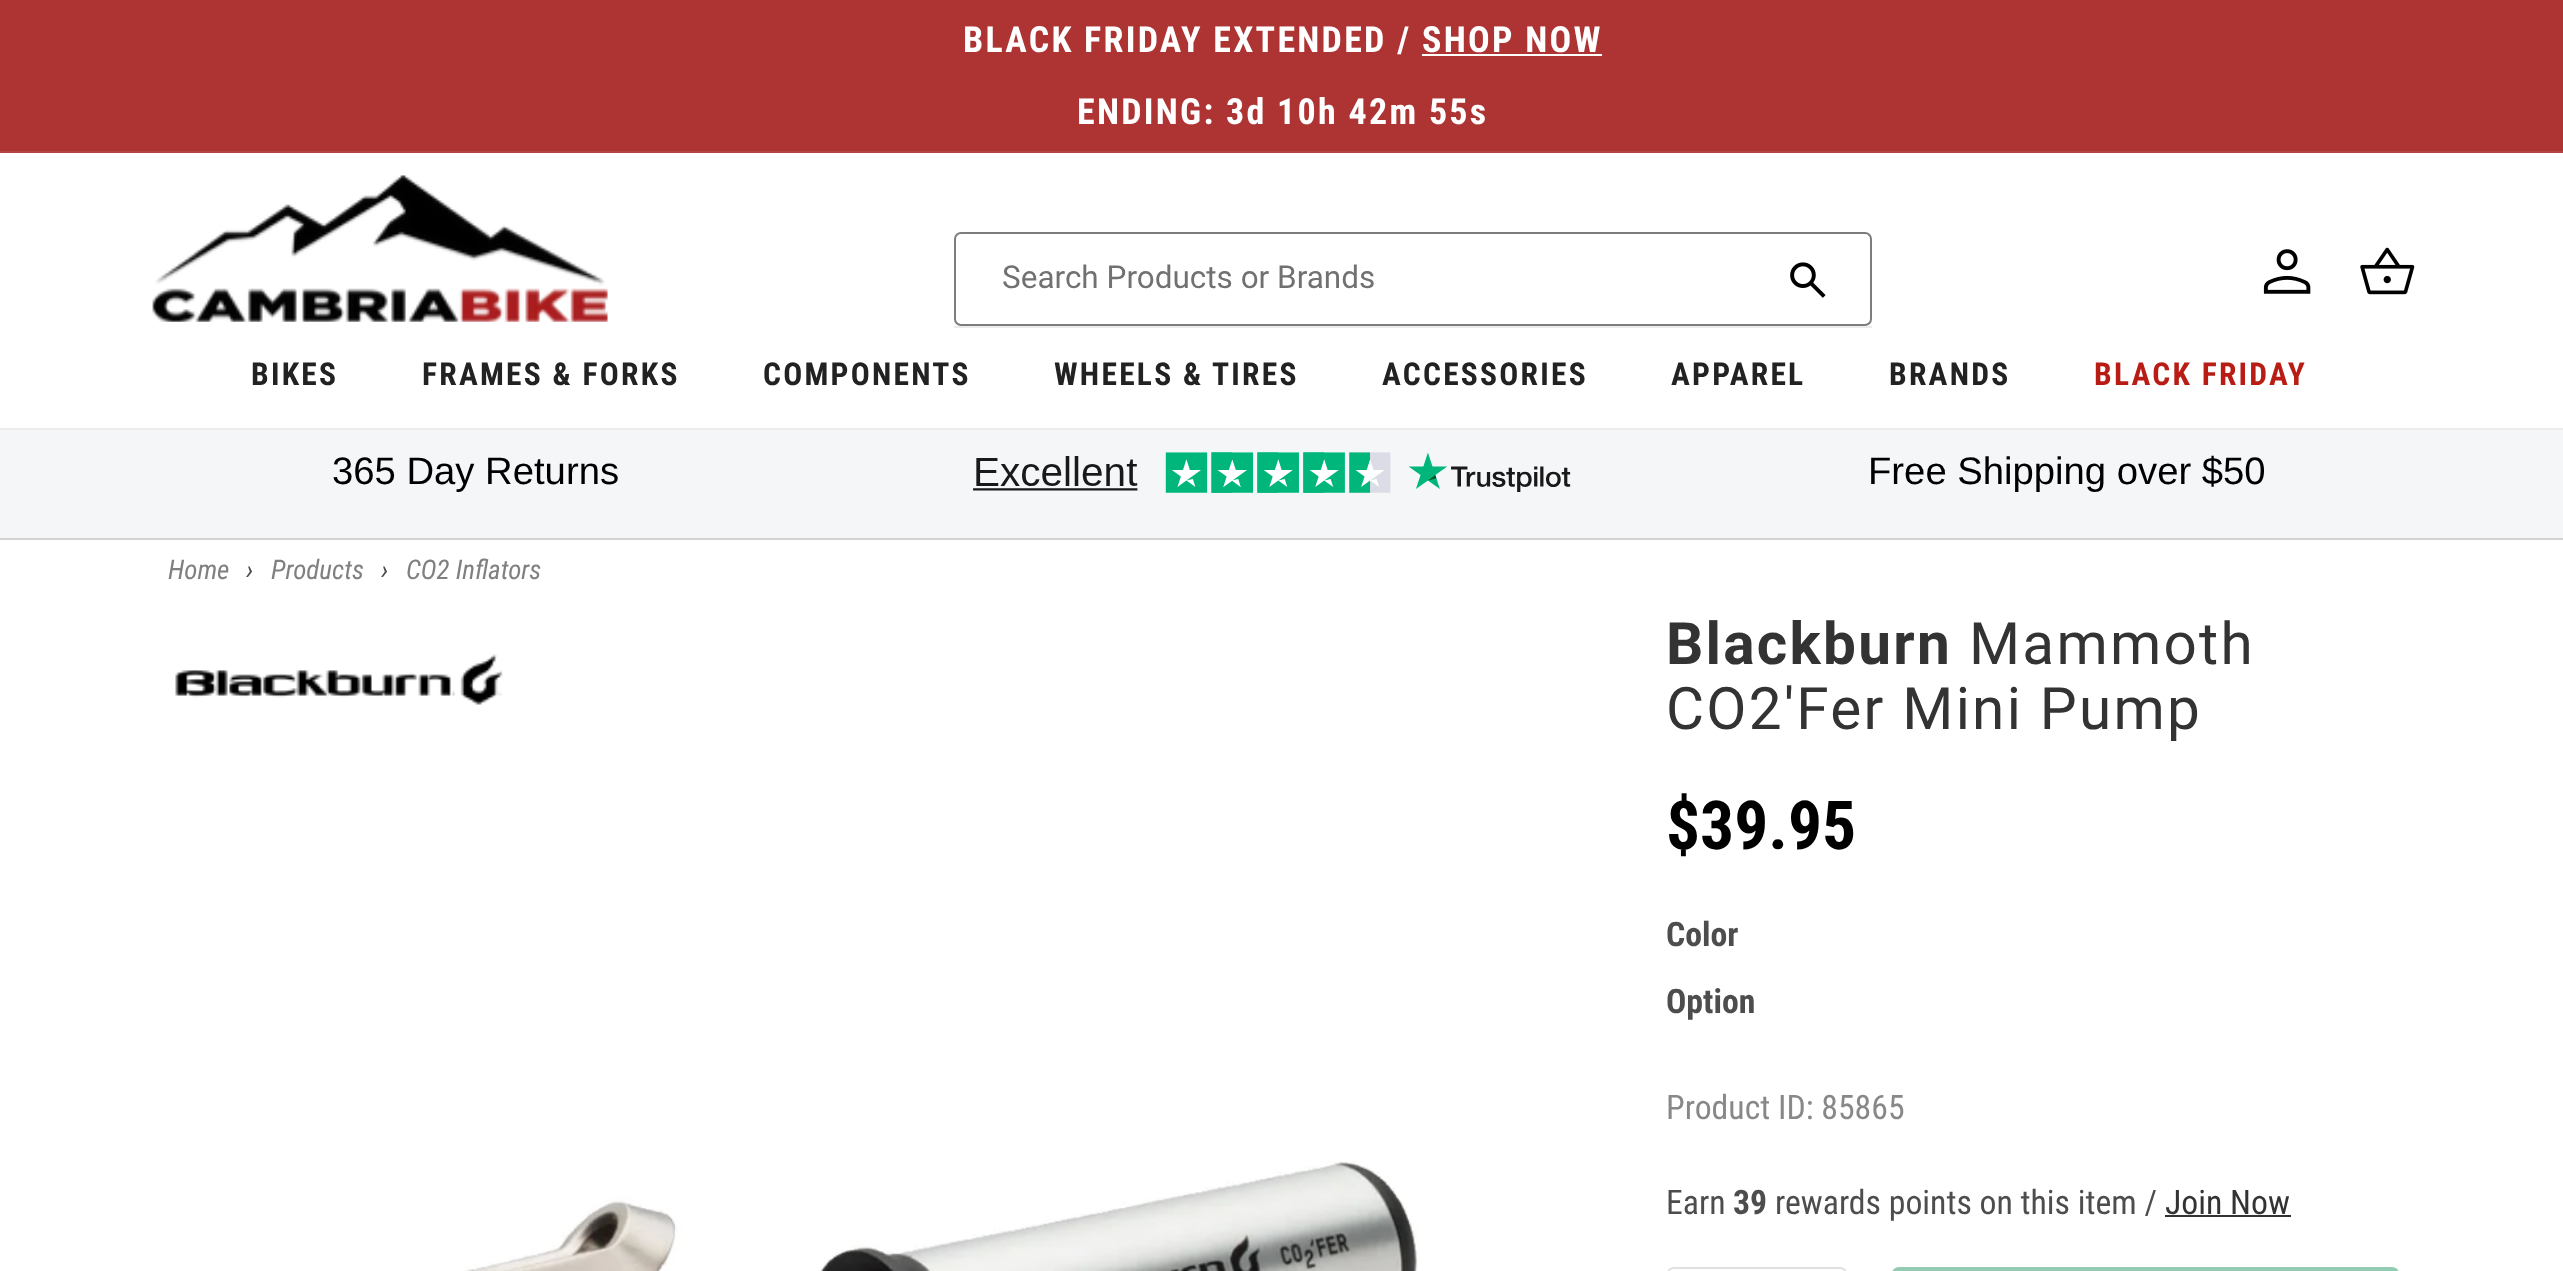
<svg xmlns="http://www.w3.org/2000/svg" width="2563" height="1271">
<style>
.a{font:bold 36px Roboto Condensed;letter-spacing:2.25px;fill:#fff}
.b{font:31.5px Roboto;fill:#717171}
.c{font:bold 31.5px Roboto Condensed;letter-spacing:2.25px;fill:#222}
.d{font:bold 31.5px Roboto Condensed;letter-spacing:2.25px;fill:#b91c15}
.e{font:38.25px Liberation Sans;fill:#000}
.f{font:italic 27px Roboto Condensed;fill:#808080}
.g{font:italic 27px Roboto Condensed;fill:#4d4d4d}
.h{font:bold 58.5px Roboto;letter-spacing:2.25px;fill:#333}
.i{font:58.5px Roboto;letter-spacing:2.25px;fill:#333}
.j{font:bold 67.5px Roboto Condensed;fill:#000}
.k{font:bold 33.75px Roboto Condensed;fill:#4d4d4d}
.l{font:33.75px Roboto Condensed;fill:#888}
.m{font:33.75px Roboto Condensed;fill:#4d4d4d}
.n{font:33.75px Roboto Condensed;fill:#333}
</style>
<rect width="100%" height="100%" fill="#fff"/>
<path fill="#ae3333" d="M0 0h2563v151H0z"/>
<path fill="#b44343" d="M0 151h2563v2H0z"/>
<path fill="#fff" d="M1422 54h180v2H1422z"/>
<path fill="#ececec" d="M0 428h2563v2H0z"/>
<image href="1.png" x="152" y="175" width="456" height="147"/>
<path fill="#ececec" d="M954 326h918v2H954z"/>
<image href="2.png" x="1790" y="262" width="36" height="36"/>
<rect fill="none" stroke="#7d7d7d" stroke-width="2" x="955" y="233" width="916" height="92" rx="6"/>
<image href="3.png" x="2263" y="249" width="48" height="45"/>
<image href="4.png" x="2360" y="247" width="55" height="48"/>
<path fill="#f4f6f8" d="M0 430h2563v108H0z"/>
<path fill="#d3d3d3" d="M0 538h2563v2H0z"/>
<image href="5.png" x="973" y="452" width="598" height="41"/>
<image href="6.png" x="175" y="654" width="328" height="51"/>
<image href="7.png" x="463" y="1161" width="955" height="110"/>
<path fill="#333" d="M2165 1215h126v2H2165z"/>
<rect fill="none" stroke="#dfe0e1" stroke-width="2" x="1668" y="1268" width="178" height="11" rx="6"/>
<rect fill="#94cbb3" stroke="#94cbb3" stroke-width="2" x="1893" y="1268" width="505" height="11" rx="6"/>
<text class="a" x="963" y="52">BLACK FRIDAY EXTENDED / SHOP NOW</text>
<text class="a" x="1077" y="124">ENDING: 3d 10h 42m 55s</text>
<text class="b" x="1002" y="288">Search Products or Brands</text>
<text class="c" x="251" y="385">BIKES</text>
<text class="c" x="422" y="385">FRAMES &amp; FORKS</text>
<text class="c" x="763" y="385">COMPONENTS</text>
<text class="c" x="1054" y="385">WHEELS &amp; TIRES</text>
<text class="c" x="1382" y="385">ACCESSORIES</text>
<text class="c" x="1671" y="385">APPAREL</text>
<text class="c" x="1889" y="385">BRANDS</text>
<text class="d" x="2094" y="385">BLACK FRIDAY</text>
<text class="e" x="332" y="484">365 Day Returns</text>
<text class="e" x="1868" y="484">Free Shipping over $50</text>
<text class="f" x="168" y="579">Home</text>
<text class="g" x="246" y="579">›</text>
<text class="f" x="271" y="579">Products</text>
<text class="g" x="381" y="579">›</text>
<text class="f" x="406" y="579">CO2 Inflators</text>
<text class="h" x="1666" y="664">Blackburn</text>
<text class="i" x="1969" y="664">Mammoth</text>
<text class="i" x="1666" y="729">CO2'Fer Mini Pump</text>
<text class="j" x="1666" y="849">$39.95</text>
<text class="k" x="1666" y="946">Color</text>
<text class="k" x="1666" y="1013">Option</text>
<text class="l" x="1666" y="1119">Product ID: 85865</text>
<text class="m" x="1666" y="1214">Earn</text>
<text class="k" x="1733" y="1214">39</text>
<text class="m" x="1775" y="1214">rewards points on this item /</text>
<text class="n" x="2165" y="1214">Join Now</text>
</svg>
